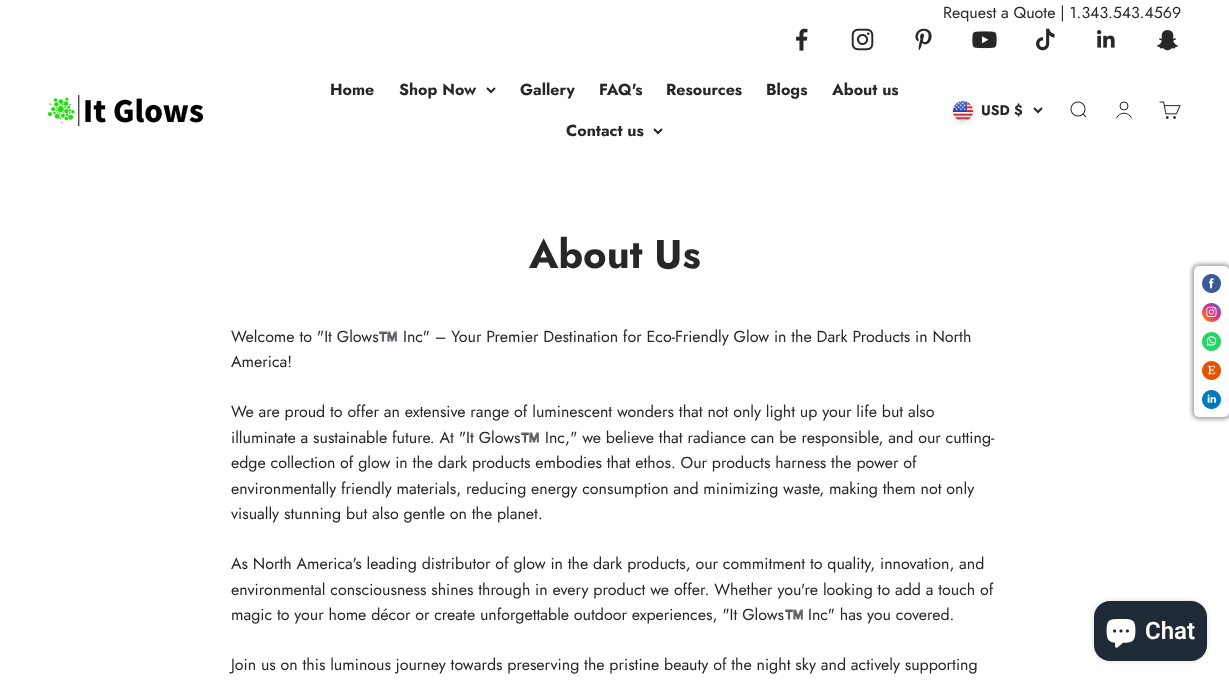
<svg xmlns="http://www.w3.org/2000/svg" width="1229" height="682">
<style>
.a{font:16px Jost;fill:#272727}
.b{font:bold 16px Jost;fill:#272727}
.c{font:bold 14px Jost;fill:#272727}
.d{font:bold 40px Jost;fill:#272727}
.e{font:16px Noto Color Emoji;fill:#272727}
.f{font:600 24px Roboto;fill:#fff}
</style>
<rect width="100%" height="100%" fill="#fff"/>
<image href="1.png" x="796" y="28" width="12" height="23"/>
<image href="2.png" x="851" y="28" width="23" height="23"/>
<image href="3.png" x="915" y="28" width="17" height="23"/>
<image href="4.png" x="972" y="31" width="25" height="18"/>
<image href="5.png" x="1036" y="28" width="19" height="23"/>
<image href="6.png" x="1097" y="30" width="18" height="18"/>
<image href="7.png" x="1156" y="30" width="23" height="21"/>
<image href="8.png" x="48" y="95" width="155" height="31"/>
<path fill="none" stroke="#272727" stroke-width="2" d="M487 88l4 4l4-4"/>
<path fill="none" stroke="#272727" stroke-width="2" d="M654 129l4 4l4-4"/>
<image href="9.png" x="951" y="101" width="24" height="24"/>
<path fill="none" stroke="#272727" stroke-width="2" d="M1034 108l4 4l4-4"/>
<image href="10.png" x="1070" y="101" width="17" height="17"/>
<circle fill="none" stroke="#272727" cx="1124" cy="106" r="4"/>
<path fill="none" stroke="#272727" stroke-linecap="round" d="M1116.5 118c3-6.5 12-6.5 15 0"/>
<image href="11.png" x="1159" y="101" width="22" height="18"/>
<rect fill="#9e9e9e" filter="blur(2px)" x="1192" y="264" width="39" height="155" rx="7"/>
<rect fill="#fff" x="1194" y="266" width="35" height="151" rx="5"/>
<image href="12.png" x="1202" y="274" width="19" height="19"/>
<image href="13.png" x="1202" y="303" width="19" height="19"/>
<image href="14.png" x="1202" y="332" width="19" height="19"/>
<image href="15.png" x="1202" y="361" width="19" height="19"/>
<image href="16.png" x="1202" y="390" width="19" height="19"/>
<rect fill="#00000026" filter="blur(2.5px)" x="1094" y="601" width="113" height="60" rx="16"/>
<rect fill="#202a36" x="1094" y="601" width="113" height="60" rx="16"/>
<image href="17.png" x="1106" y="619" width="30" height="29"/>
<text class="a" x="943" y="18">Request a Quote | 1.343.543.4569</text>
<text class="b" x="330" y="95">Home</text>
<text class="b" x="399" y="95">Shop Now</text>
<text class="b" x="520" y="95">Gallery</text>
<text class="b" x="599" y="95">FAQ's</text>
<text class="b" x="666" y="95">Resources</text>
<text class="b" x="766" y="95">Blogs</text>
<text class="b" x="832" y="95">About us</text>
<text class="b" x="566" y="136">Contact us</text>
<text class="c" x="981" y="115">USD $</text>
<text class="d" x="529" y="268">About Us</text>
<text class="a" x="231" y="342">Welcome to "It Glows</text>
<text class="e" x="378" y="342">™️</text>
<text class="a" x="403" y="342">Inc" – Your Premier Destination for Eco-Friendly Glow in the Dark Products in North</text>
<text class="a" x="231" y="367">America!</text>
<text class="a" x="231" y="417">We are proud to offer an extensive range of luminescent wonders that not only light up your life but also</text>
<text class="a" x="231" y="443">illuminate a sustainable future. At "It Glows</text>
<text class="e" x="520" y="443">™️</text>
<text class="a" x="545" y="443">Inc," we believe that radiance can be responsible, and our cutting-</text>
<text class="a" x="231" y="468">edge collection of glow in the dark products embodies that ethos. Our products harness the power of</text>
<text class="a" x="231" y="494">environmentally friendly materials, reducing energy consumption and minimizing waste, making them not only</text>
<text class="a" x="231" y="519">visually stunning but also gentle on the planet.</text>
<text class="a" x="231" y="569">As North America's leading distributor of glow in the dark products, our commitment to quality, innovation, and</text>
<text class="a" x="231" y="595">environmental consciousness shines through in every product we offer. Whether you're looking to add a touch of</text>
<text class="a" x="231" y="620">magic to your home décor or create unforgettable outdoor experiences, "It Glows</text>
<text class="e" x="784" y="620">™️</text>
<text class="a" x="808" y="620">Inc" has you covered.</text>
<text class="a" x="231" y="670">Join us on this luminous journey towards preserving the pristine beauty of the night sky and actively supporting</text>
<text class="f" x="1145" y="639">Chat</text>
</svg>
